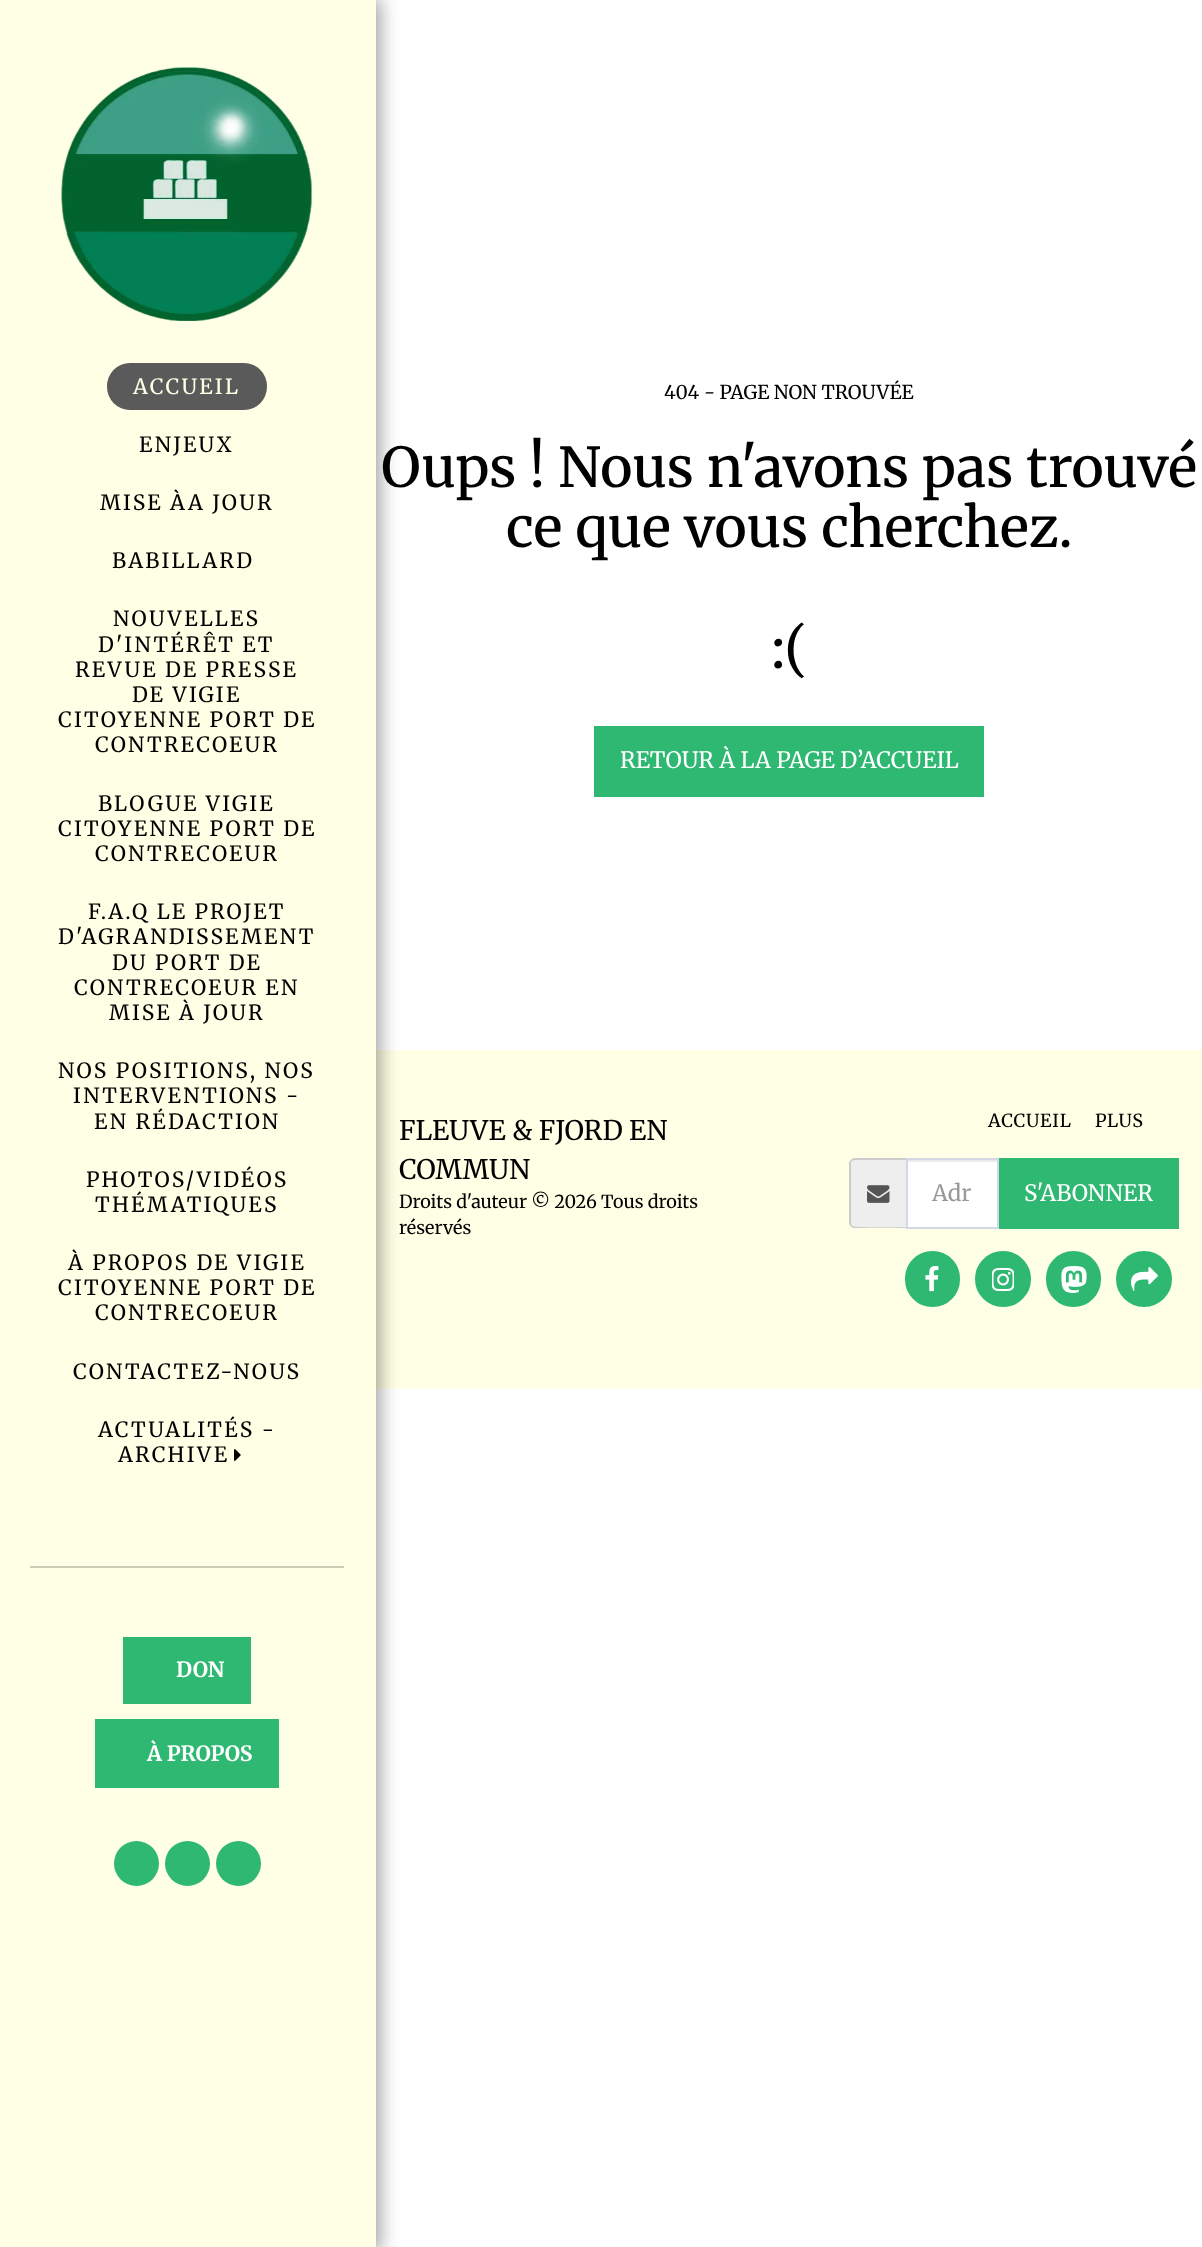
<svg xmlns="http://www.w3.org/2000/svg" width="1202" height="2247">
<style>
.a{font:21px Merriweather;letter-spacing:2.25px;fill:#feffe4}
.b{font:21px Merriweather;letter-spacing:2.25px;fill:#000}
.c{font:bold 21px Merriweather;fill:#fff}
.d{font:19.1px Merriweather;fill:#000}
.e{font:500 54.9px Merriweather;fill:#000}
.f{font:22.5px Merriweather;fill:#fff}
.g{font:27px Merriweather;fill:#000}
.h{font:18px Merriweather;fill:#000}
.i{font:18px Merriweather;letter-spacing:0.75px;fill:#000}
.j{font:22.5px Merriweather;fill:#999}
</style>
<rect width="100%" height="100%" fill="#fff"/>
<path fill="#feffe4" d="M376 1050h826v339H376z"/>
<path fill="#00000059" filter="blur(9px)" d="M0 -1h381v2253H0z"/>
<path fill="#feffe4" d="M0 0h376v2247H0z"/>
<image href="1.png" x="61" y="67" width="251" height="254"/>
<rect fill="#5a5a5a" x="107" y="363" width="160" height="47" rx="23"/>
<image href="2.png" x="234" y="1449" width="7" height="12"/>
<path fill="#cbccb6" d="M30 1566h314v2H30z"/>
<path fill="#2eb872" d="M123 1637h128v67H123z"/>
<path fill="#2eb872" d="M95 1719h184v69H95z"/>
<circle fill="#2eb872" cx="136.5" cy="1863.5" r="22.5"/>
<circle fill="#2eb872" cx="187.5" cy="1863.5" r="22.5"/>
<circle fill="#2eb872" cx="238.5" cy="1863.5" r="22.5"/>
<path fill="#2eb872" d="M594 726h390v71H594z"/>
<path fill="#eee" d="M856 1160h50v67h-50c-3 0-5-2-5-5v-57c0-3 2-5 5-5z"/>
<path fill="#ccc" fill-rule="evenodd" d="M855 1158h51v70h-51c-3 0-6-2-6-6v-58c0-3 3-6 6-6zm0 2h51v67c-7 0-51 1-54-1l-1-3v-60l1-2z"/>
<image href="3.png" x="867" y="1185" width="23" height="18"/>
<path fill="#fff" d="M908 1162h89v65H908z"/>
<path fill="#ececec" d="M908 1160h90v2H908z"/>
<path fill="none" stroke="#d4d7e5" stroke-width="2" d="M907 1159h91v69H907z"/>
<path fill="#2eb872" d="M999 1158h180v71H999z"/>
<rect fill="#2eb872" stroke="#2eb872" stroke-width="2" x="906" y="1252" width="53" height="54" rx="26.5"/>
<image href="4.png" x="925" y="1266" width="14" height="26"/>
<circle fill="#2eb872" stroke="#2eb872" stroke-width="2" cx="1003" cy="1279" r="27"/>
<image href="5.png" x="992" y="1267" width="22" height="25"/>
<rect fill="#2eb872" stroke="#2eb872" stroke-width="2" x="1047" y="1252" width="53" height="54" rx="26.5"/>
<image href="6.png" x="1061" y="1266" width="26" height="27"/>
<circle fill="#2eb872" stroke="#2eb872" stroke-width="2" cx="1144" cy="1279" r="27"/>
<image href="7.png" x="1131" y="1267" width="27" height="24"/>
<text class="a" x="133" y="394">ACCUEIL</text>
<text class="b" x="139" y="452">ENJEUX</text>
<text class="b" x="100" y="510">MISE ÀA JOUR</text>
<text class="b" x="112" y="568">BABILLARD</text>
<text class="b" x="113" y="626">NOUVELLES</text>
<text class="b" x="98" y="652">D'INTÉRÊT ET</text>
<text class="b" x="75" y="677">REVUE DE PRESSE</text>
<text class="b" x="132" y="702">DE VIGIE</text>
<text class="b" x="58" y="727">CITOYENNE PORT DE</text>
<text class="b" x="95" y="752">CONTRECOEUR</text>
<text class="b" x="98" y="811">BLOGUE VIGIE</text>
<text class="b" x="58" y="836">CITOYENNE PORT DE</text>
<text class="b" x="95" y="861">CONTRECOEUR</text>
<text class="b" x="88" y="919">F.A.Q LE PROJET</text>
<text class="b" x="58" y="944">D'AGRANDISSEMENT</text>
<text class="b" x="112" y="970">DU PORT DE</text>
<text class="b" x="74" y="995">CONTRECOEUR EN</text>
<text class="b" x="109" y="1020">MISE À JOUR</text>
<text class="b" x="58" y="1078">NOS POSITIONS, NOS</text>
<text class="b" x="73" y="1103">INTERVENTIONS -</text>
<text class="b" x="94" y="1129">EN RÉDACTION</text>
<text class="b" x="86" y="1187">PHOTOS/VIDÉOS</text>
<text class="b" x="95" y="1212">THÉMATIQUES</text>
<text class="b" x="68" y="1270">À PROPOS DE VIGIE</text>
<text class="b" x="58" y="1295">CITOYENNE PORT DE</text>
<text class="b" x="95" y="1320">CONTRECOEUR</text>
<text class="b" x="73" y="1379">CONTACTEZ-NOUS</text>
<text class="b" x="98" y="1437">ACTUALITÉS -</text>
<text class="b" x="118" y="1462">ARCHIVE</text>
<text class="c" x="176" y="1677">DON</text>
<text class="c" x="147" y="1761">À PROPOS</text>
<text class="d" x="664" y="399">404 - PAGE NON TROUVÉE</text>
<text class="e" x="381" y="487">Oups ! Nous n'avons pas trouvé</text>
<text class="e" x="506" y="547">ce que vous cherchez.</text>
<text class="e" x="771" y="668">:(</text>
<text class="f" x="620" y="768">RETOUR À LA PAGE D’ACCUEIL</text>
<text class="g" x="399" y="1140">FLEUVE &amp; FJORD EN</text>
<text class="g" x="399" y="1179">COMMUN</text>
<text class="h" x="399" y="1208">Droits d'auteur © 2026 Tous droits</text>
<text class="h" x="399" y="1234">réservés</text>
<text class="i" x="988" y="1127">ACCUEIL</text>
<text class="i" x="1095" y="1127">PLUS</text>
<text class="j" x="932" y="1201">Adr</text>
<text class="f" x="1024" y="1201">S'ABONNER</text>
</svg>
